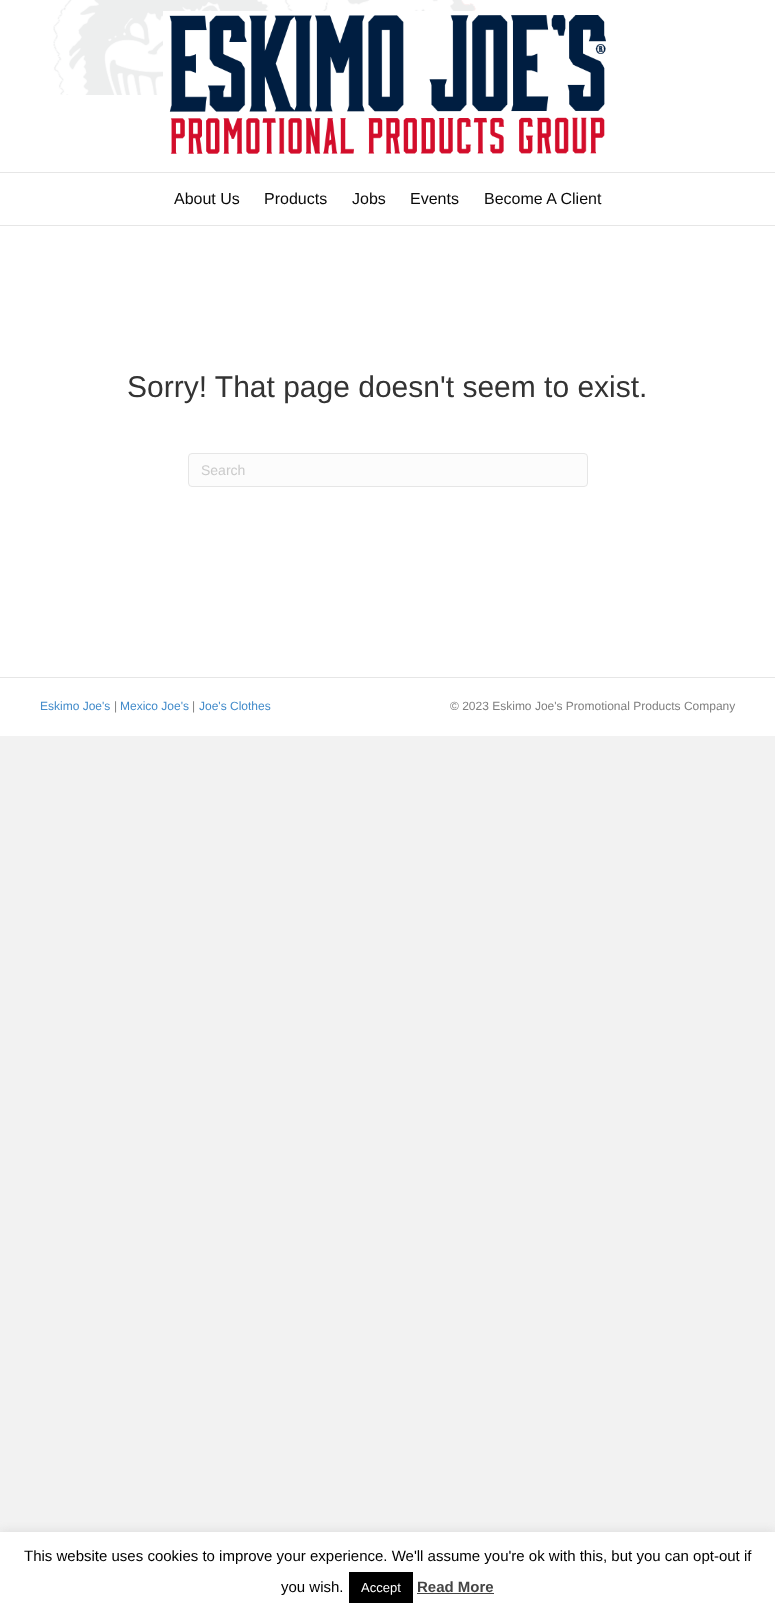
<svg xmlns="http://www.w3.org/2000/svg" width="775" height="1615">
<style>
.a{font:16px Liberation Sans;fill:#0a0a0a}
.b{font:30px Liberation Sans;fill:#333}
.c{font:14px Liberation Sans;fill:#cacaca}
.d{font:12px Liberation Sans;fill:#428bca}
.e{font:12px Liberation Sans;fill:#808080}
.f{font:15px Liberation Sans;fill:#000}
.g{font:13px Liberation Sans;fill:#fff}
.h{font:bold 15px Liberation Sans;fill:#444}
</style>
<rect width="100%" height="100%" fill="#f2f2f2"/>
<path fill="#fff" d="M0 0h775v225H0z"/>
<image href="1.png" x="53" y="0" width="448" height="95"/>
<image href="2.png" x="163" y="11" width="443" height="143"/>
<path fill="#e6e6e6" d="M0 172h775v1H0z"/>
<path fill="#e6e6e6" d="M0 225h775v1H0z"/>
<path fill="#fff" d="M0 226h775v451H0z"/>
<rect fill="#fcfcfc" stroke="#e6e6e6" x="188.5" y="453.5" width="399" height="33" rx="3.5"/>
<path fill="#fff" d="M0 678h775v58H0z"/>
<path fill="#e6e6e6" d="M0 677h775v1H0z"/>
<path fill="#acabab4d" filter="blur(5px)" d="M0 1531h775v83H0z"/>
<path fill="#fff" d="M0 1532h775v83H0z"/>
<path fill="#000" d="M349 1572h64v31H349z"/>
<path fill="#444" d="M417 1593h77v1H417z"/>
<text class="a" x="174" y="204">About Us</text>
<text class="a" x="264" y="204">Products</text>
<text class="a" x="352" y="204">Jobs</text>
<text class="a" x="410" y="204">Events</text>
<text class="a" x="484" y="204">Become A Client</text>
<text class="b" x="127" y="397">Sorry! That page doesn't seem to exist.</text>
<text class="c" x="201" y="475">Search</text>
<text class="d" x="40" y="710">Eskimo Joe's</text>
<text class="e" x="114" y="710">|</text>
<text class="d" x="120" y="710">Mexico Joe's</text>
<text class="e" x="192" y="710">|</text>
<text class="d" x="199" y="710">Joe's Clothes</text>
<text class="e" x="450" y="710">© 2023 Eskimo Joe's Promotional Products Company</text>
<text class="f" x="24" y="1561">This website uses cookies to improve your experience. We'll assume you're ok with this, but you can opt-out if</text>
<text class="f" x="281" y="1592">you wish.</text>
<text class="g" x="361" y="1592">Accept</text>
<text class="h" x="417" y="1592">Read More</text>
</svg>
